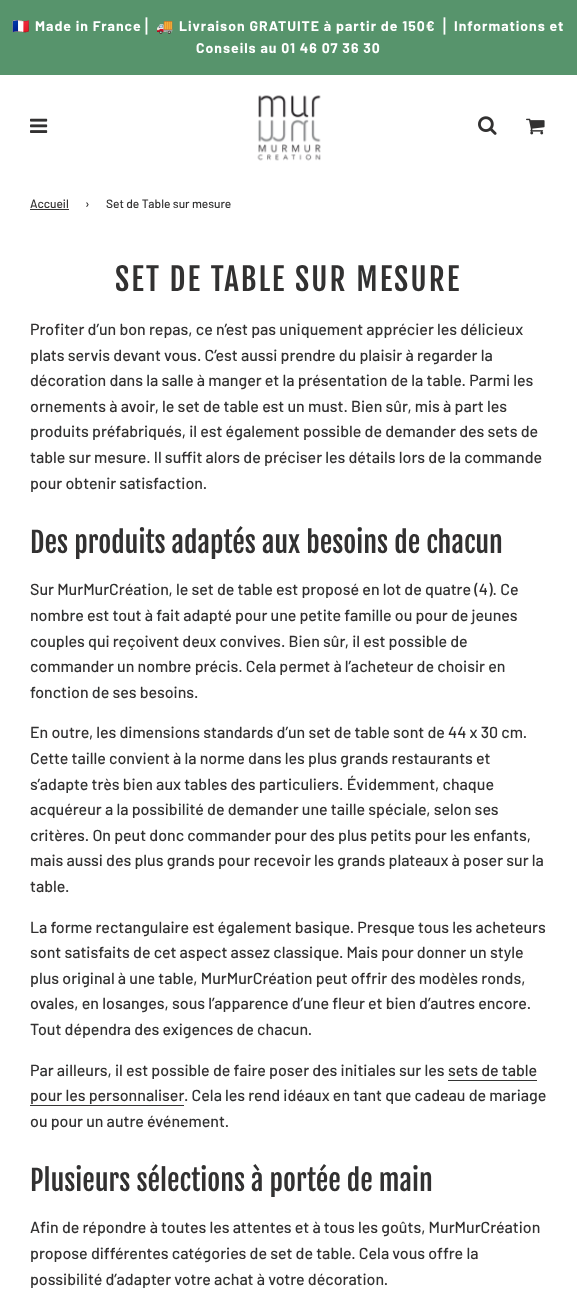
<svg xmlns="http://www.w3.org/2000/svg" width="577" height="1292">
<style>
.a{font:bold 14px Noto Color Emoji;letter-spacing:1px;fill:#fff}
.b{font:bold 14px Barlow;letter-spacing:1px;fill:#fff}
.c{font:bold 14px DejaVu Sans;letter-spacing:1px;fill:#fff}
.d{font:500 12px Barlow;fill:#323131}
.e{font:31px Fjalla One;letter-spacing:2px;fill:#323131}
.f{font:500 16px Barlow;fill:#323131}
.g{font:28px Fjalla One;fill:#323131}
</style>
<rect width="100%" height="100%" fill="#fff"/>
<path fill="#57946c" d="M0 0h577v75H0z"/>
<image href="1.png" x="30" y="118" width="18" height="15"/>
<image href="2.png" x="257" y="95" width="64" height="66"/>
<image href="3.png" x="478" y="116" width="19" height="19"/>
<image href="4.png" x="526" y="118" width="19" height="17"/>
<path fill="#343434" d="M30 209h39v1H30z"/>
<path fill="#343434" d="M448 1080h89v1H448z"/>
<path fill="#343434" d="M30 1105h154v1H30z"/>
<text class="a" x="12" y="31">🇫🇷</text>
<text class="b" x="35" y="31">Made in France</text>
<text class="c" x="141" y="31">⎪</text>
<text class="a" x="156" y="31">🚚</text>
<text class="b" x="179" y="31">Livraison GRATUITE à partir de 150€</text>
<text class="c" x="439" y="31">⎪</text>
<text class="b" x="454" y="31">Informations et</text>
<text class="b" x="196" y="53">Conseils au 01 46 07 36 30</text>
<text class="d" x="30" y="208">Accueil</text>
<text class="d" x="85" y="208">›</text>
<text class="d" x="106" y="208">Set de Table sur mesure</text>
<text class="e" x="115" y="291">SET DE TABLE SUR MESURE</text>
<text class="f" x="30" y="335">Profiter d’un bon repas, ce n’est pas uniquement apprécier les délicieux</text>
<text class="f" x="30" y="361">plats servis devant vous. C’est aussi prendre du plaisir à regarder la</text>
<text class="f" x="30" y="386">décoration dans la salle à manger et la présentation de la table. Parmi les</text>
<text class="f" x="30" y="412">ornements à avoir, le set de table est un must. Bien sûr, mis à part les</text>
<text class="f" x="30" y="437">produits préfabriqués, il est également possible de demander des sets de</text>
<text class="f" x="30" y="463">table sur mesure. Il suffit alors de préciser les détails lors de la commande</text>
<text class="f" x="30" y="489">pour obtenir satisfaction.</text>
<text class="g" x="30" y="553">Des produits adaptés aux besoins de chacun</text>
<text class="f" x="30" y="595">Sur MurMurCréation, le set de table est proposé en lot de quatre (4). Ce</text>
<text class="f" x="30" y="621">nombre est tout à fait adapté pour une petite famille ou pour de jeunes</text>
<text class="f" x="30" y="647">couples qui reçoivent deux convives. Bien sûr, il est possible de</text>
<text class="f" x="30" y="672">commander un nombre précis. Cela permet à l’acheteur de choisir en</text>
<text class="f" x="30" y="698">fonction de ses besoins.</text>
<text class="f" x="30" y="738">En outre, les dimensions standards d’un set de table sont de 44 x 30 cm.</text>
<text class="f" x="30" y="764">Cette taille convient à la norme dans les plus grands restaurants et</text>
<text class="f" x="30" y="790">s’adapte très bien aux tables des particuliers. Évidemment, chaque</text>
<text class="f" x="30" y="815">acquéreur a la possibilité de demander une taille spéciale, selon ses</text>
<text class="f" x="30" y="841">critères. On peut donc commander pour des plus petits pour les enfants,</text>
<text class="f" x="30" y="866">mais aussi des plus grands pour recevoir les grands plateaux à poser sur la</text>
<text class="f" x="30" y="892">table.</text>
<text class="f" x="30" y="933">La forme rectangulaire est également basique. Presque tous les acheteurs</text>
<text class="f" x="30" y="958">sont satisfaits de cet aspect assez classique. Mais pour donner un style</text>
<text class="f" x="30" y="984">plus original à une table, MurMurCréation peut offrir des modèles ronds,</text>
<text class="f" x="30" y="1009">ovales, en losanges, sous l’apparence d’une fleur et bien d’autres encore.</text>
<text class="f" x="30" y="1035">Tout dépendra des exigences de chacun.</text>
<text class="f" x="30" y="1076">Par ailleurs, il est possible de faire poser des initiales sur les</text>
<text class="f" x="448" y="1076">sets de table</text>
<text class="f" x="30" y="1101">pour les personnaliser</text>
<text class="f" x="184" y="1101">. Cela les rend idéaux en tant que cadeau de mariage</text>
<text class="f" x="30" y="1127">ou pour un autre événement.</text>
<text class="g" x="30" y="1191">Plusieurs sélections à portée de main</text>
<text class="f" x="30" y="1233">Afin de répondre à toutes les attentes et à tous les goûts, MurMurCréation</text>
<text class="f" x="30" y="1259">propose différentes catégories de set de table. Cela vous offre la</text>
<text class="f" x="30" y="1285">possibilité d’adapter votre achat à votre décoration.</text>
</svg>
